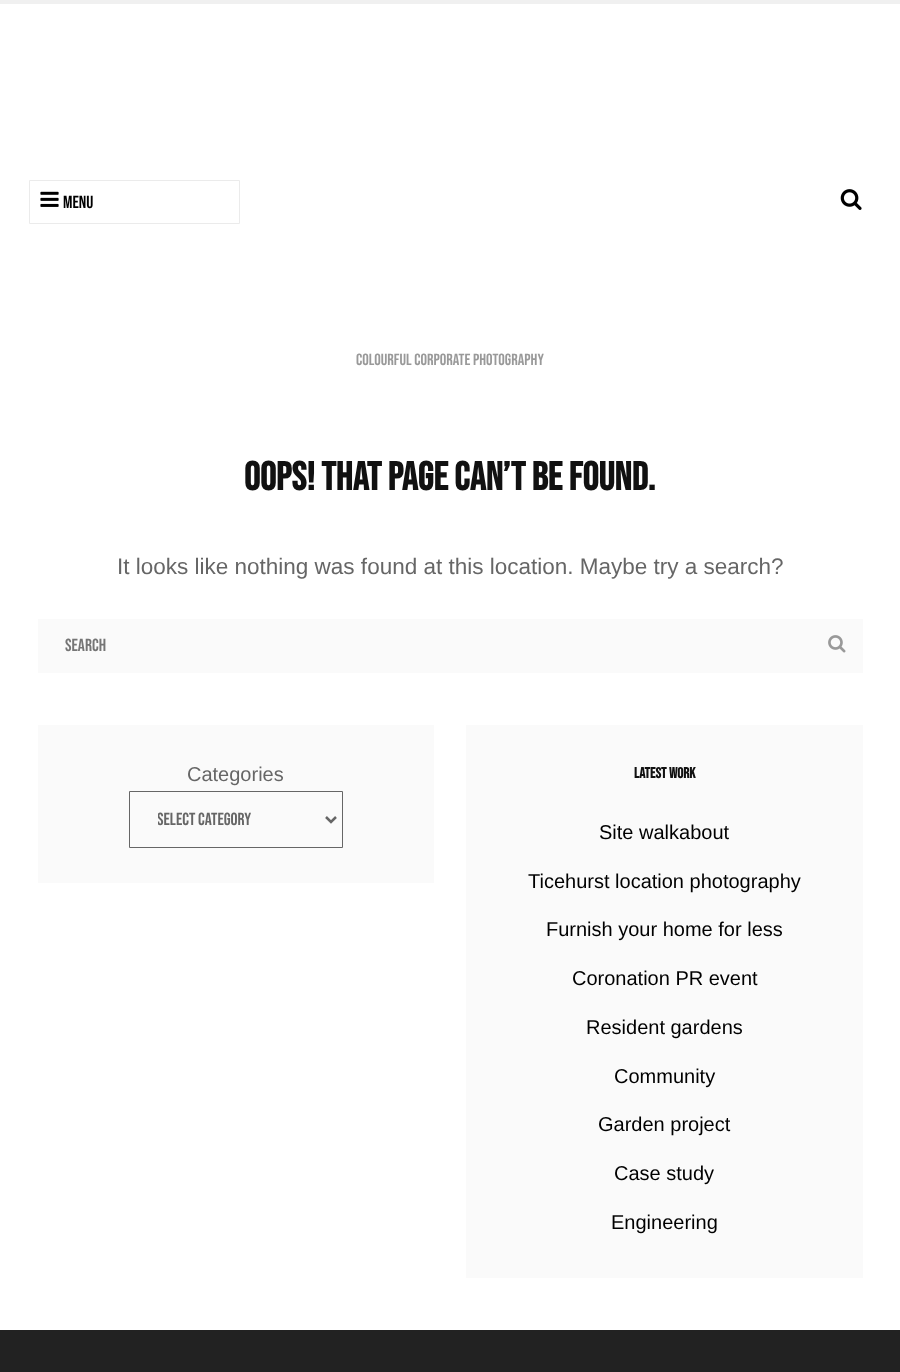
<svg xmlns="http://www.w3.org/2000/svg" width="900" height="1372">
<style>
.a{font:17.5px Bebas Neue;fill:#000}
.b{font:16.25px Bebas Neue;fill:#999}
.c{font:bold 40px Bebas Neue;fill:#111}
.d{font:22.5px Liberation Sans;fill:#666}
.e{font:17.5px Bebas Neue;fill:#757575}
.f{font:20px Liberation Sans;fill:#666}
.g{font:17.5px Bebas Neue;fill:#666}
.h{font:bold 15px Bebas Neue;fill:#111}
.i{font:20px Liberation Sans;fill:#000}
</style>
<defs>
<clipPath id="clip1"><path d="M158 808h141v23H158z"/></clipPath>
</defs>
<rect width="100%" height="100%" fill="#f0f0f0"/>
<path fill="#fff" d="M0 4h900v1326H0z"/>
<path fill="none" stroke="#ebebeb" d="M29.5 180.5h210v43H29.5z"/>
<image href="1.png" x="40" y="191" width="19" height="16"/>
<image href="2.png" x="840" y="189" width="22" height="21"/>
<path fill="#fafafa" d="M38 619h825v54H38z"/>
<image href="3.png" x="828" y="635" width="18" height="18"/>
<path fill="#fafafa" d="M38 725h396v158H38z"/>
<path fill="none" stroke="#666" d="M129.5 791.5h213v56H129.5z"/>
<path fill="none" stroke="#666" stroke-width="2.5" d="M326 817l5 5l5-5"/>
<path fill="#fafafa" d="M466 725h397v553H466z"/>
<path fill="#222" d="M0 1330h900v42H0z"/>
<text class="a" x="63" y="208">Menu</text>
<text class="b" x="356" y="365">Colourful Corporate Photography</text>
<text class="c" x="244" y="490">Oops! That page can’t be found.</text>
<text class="d" x="117" y="574">It looks like nothing was found at this location. Maybe try a search?</text>
<text class="e" x="65" y="651">Search</text>
<text class="f" x="187" y="781">Categories</text>
<g clip-path="url(#clip1)">
<text class="g" x="157" y="825">Select Category</text>
</g>
<text class="h" x="634" y="778">LATEST WORK</text>
<text class="i" x="599" y="839">Site walkabout</text>
<text class="i" x="528" y="888">Ticehurst location photography</text>
<text class="i" x="546" y="936">Furnish your home for less</text>
<text class="i" x="572" y="985">Coronation PR event</text>
<text class="i" x="586" y="1034">Resident gardens</text>
<text class="i" x="614" y="1083">Community</text>
<text class="i" x="598" y="1131">Garden project</text>
<text class="i" x="614" y="1180">Case study</text>
<text class="i" x="611" y="1229">Engineering</text>
</svg>
